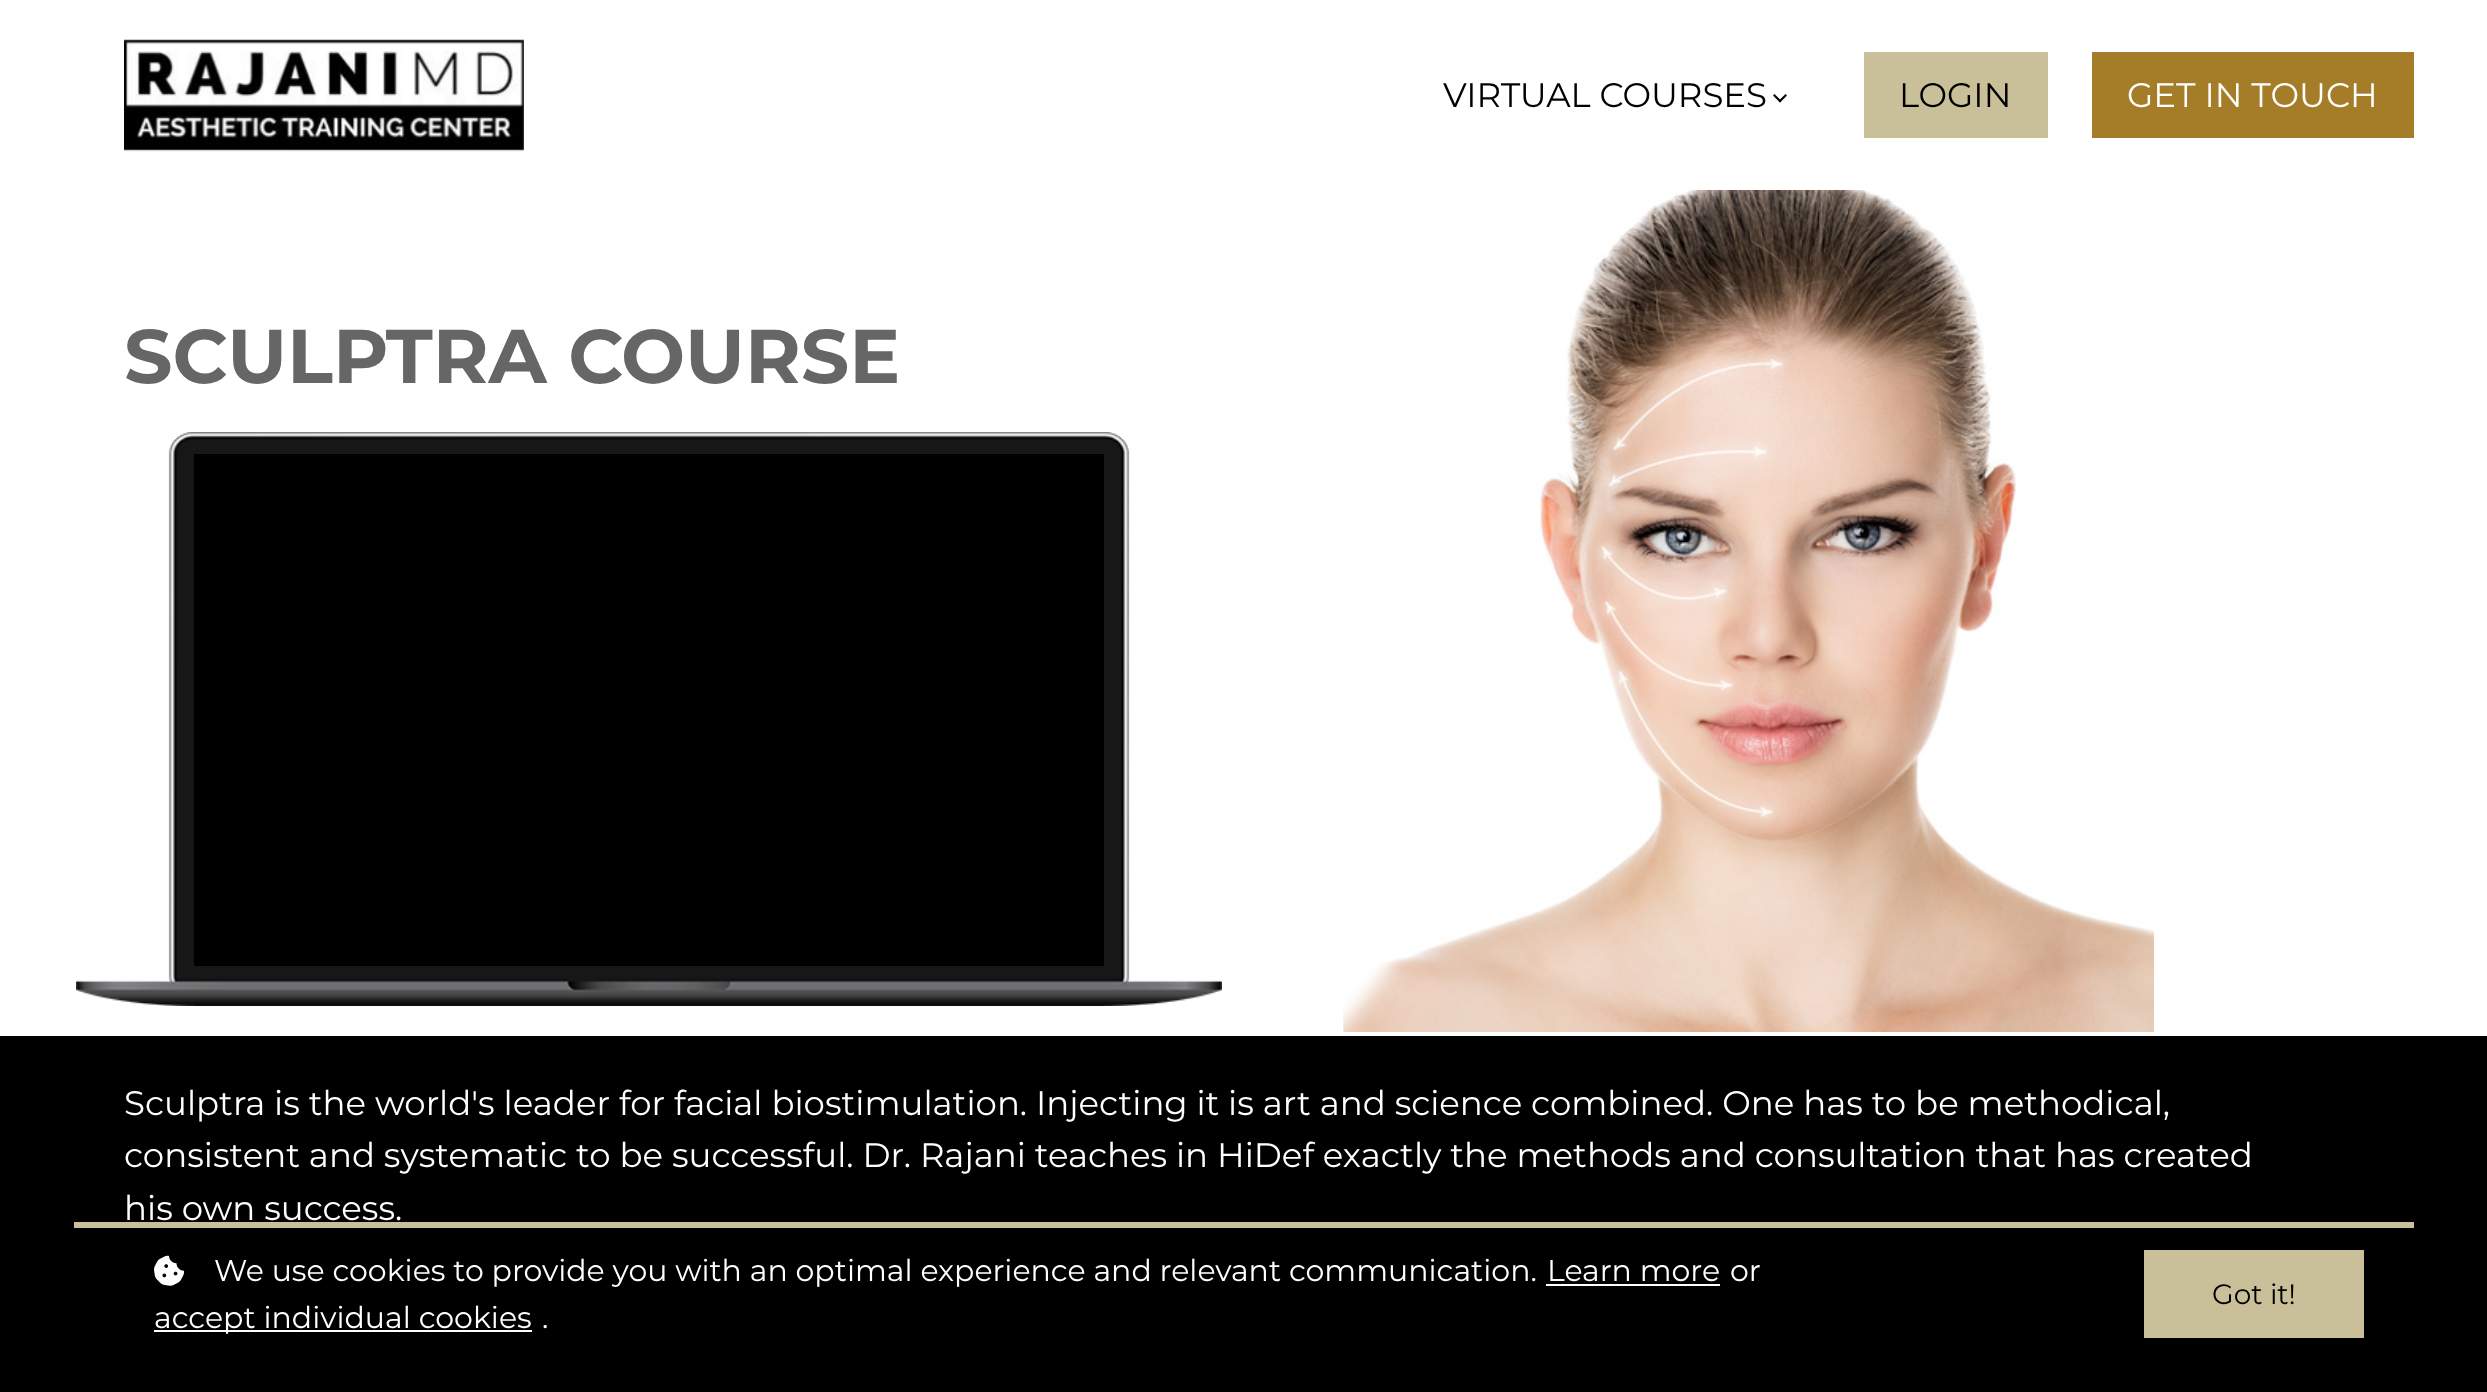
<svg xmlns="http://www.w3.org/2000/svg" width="2487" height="1392">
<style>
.a{font:34px Montserrat;fill:#000}
.b{font:34px Montserrat;fill:#fff}
.c{font:bold 76px Montserrat;fill:#666}
.d{font:30px Montserrat;fill:#fff}
.e{font:28px Montserrat;fill:#000}
</style>
<rect width="100%" height="100%" fill="#fff"/>
<image href="1.png" x="124" y="39" width="400" height="113"/>
<path fill="#000" d="M1787 95.5l-7 7l-1.5-1.5l7-7z"/>
<path fill="#000" d="M1781.5 101l-1.5 1.5l-7-7l1.5-1.5z"/>
<path fill="#c9bf99" d="M1864 52h184v86H1864z"/>
<path fill="#a57d29" d="M2092 52h322v86H2092z"/>
<image href="2.png" x="76" y="432" width="1146" height="574"/>
<path fill="#000" d="M194 454h910v512H194z"/>
<image href="3.png" x="1343" y="190" width="811" height="842"/>
<path fill="#000" d="M0 1036h2487v356H0z"/>
<path fill="#00000080" filter="blur(20px)" d="M74 1222h2340v138H74z"/>
<path fill="#c9bf99" d="M74 1222h2340v6H74z"/>
<image href="4.png" x="154" y="1255" width="30" height="31"/>
<path fill="#fff" d="M1546 1284h174v2H1546z"/>
<path fill="#fff" d="M154 1330h378v2H154z"/>
<path fill="#c9bf99" d="M2144 1250h220v88H2144z"/>
<text class="a" x="1443" y="107">VIRTUAL COURSES</text>
<text class="a" x="1899" y="107">LOGIN</text>
<text class="b" x="2127" y="107">GET IN TOUCH</text>
<text class="c" x="124" y="383">SCULPTRA COURSE</text>
<text class="b" x="124" y="1115">Sculptra is the world's leader for facial biostimulation. Injecting it is art and science combined. One has to be methodical,</text>
<text class="b" x="124" y="1167">consistent and systematic to be successful. Dr. Rajani teaches in HiDef exactly the methods and consultation that has created</text>
<text class="b" x="124" y="1220">his own success.</text>
<text class="d" x="214" y="1281">We use cookies to provide you with an optimal experience and relevant communication.</text>
<text class="d" x="1547" y="1281">Learn more</text>
<text class="d" x="1730" y="1281">or</text>
<text class="d" x="154" y="1328">accept individual cookies</text>
<text class="d" x="542" y="1328">.</text>
<text class="e" x="2212" y="1304">Got it!</text>
</svg>
